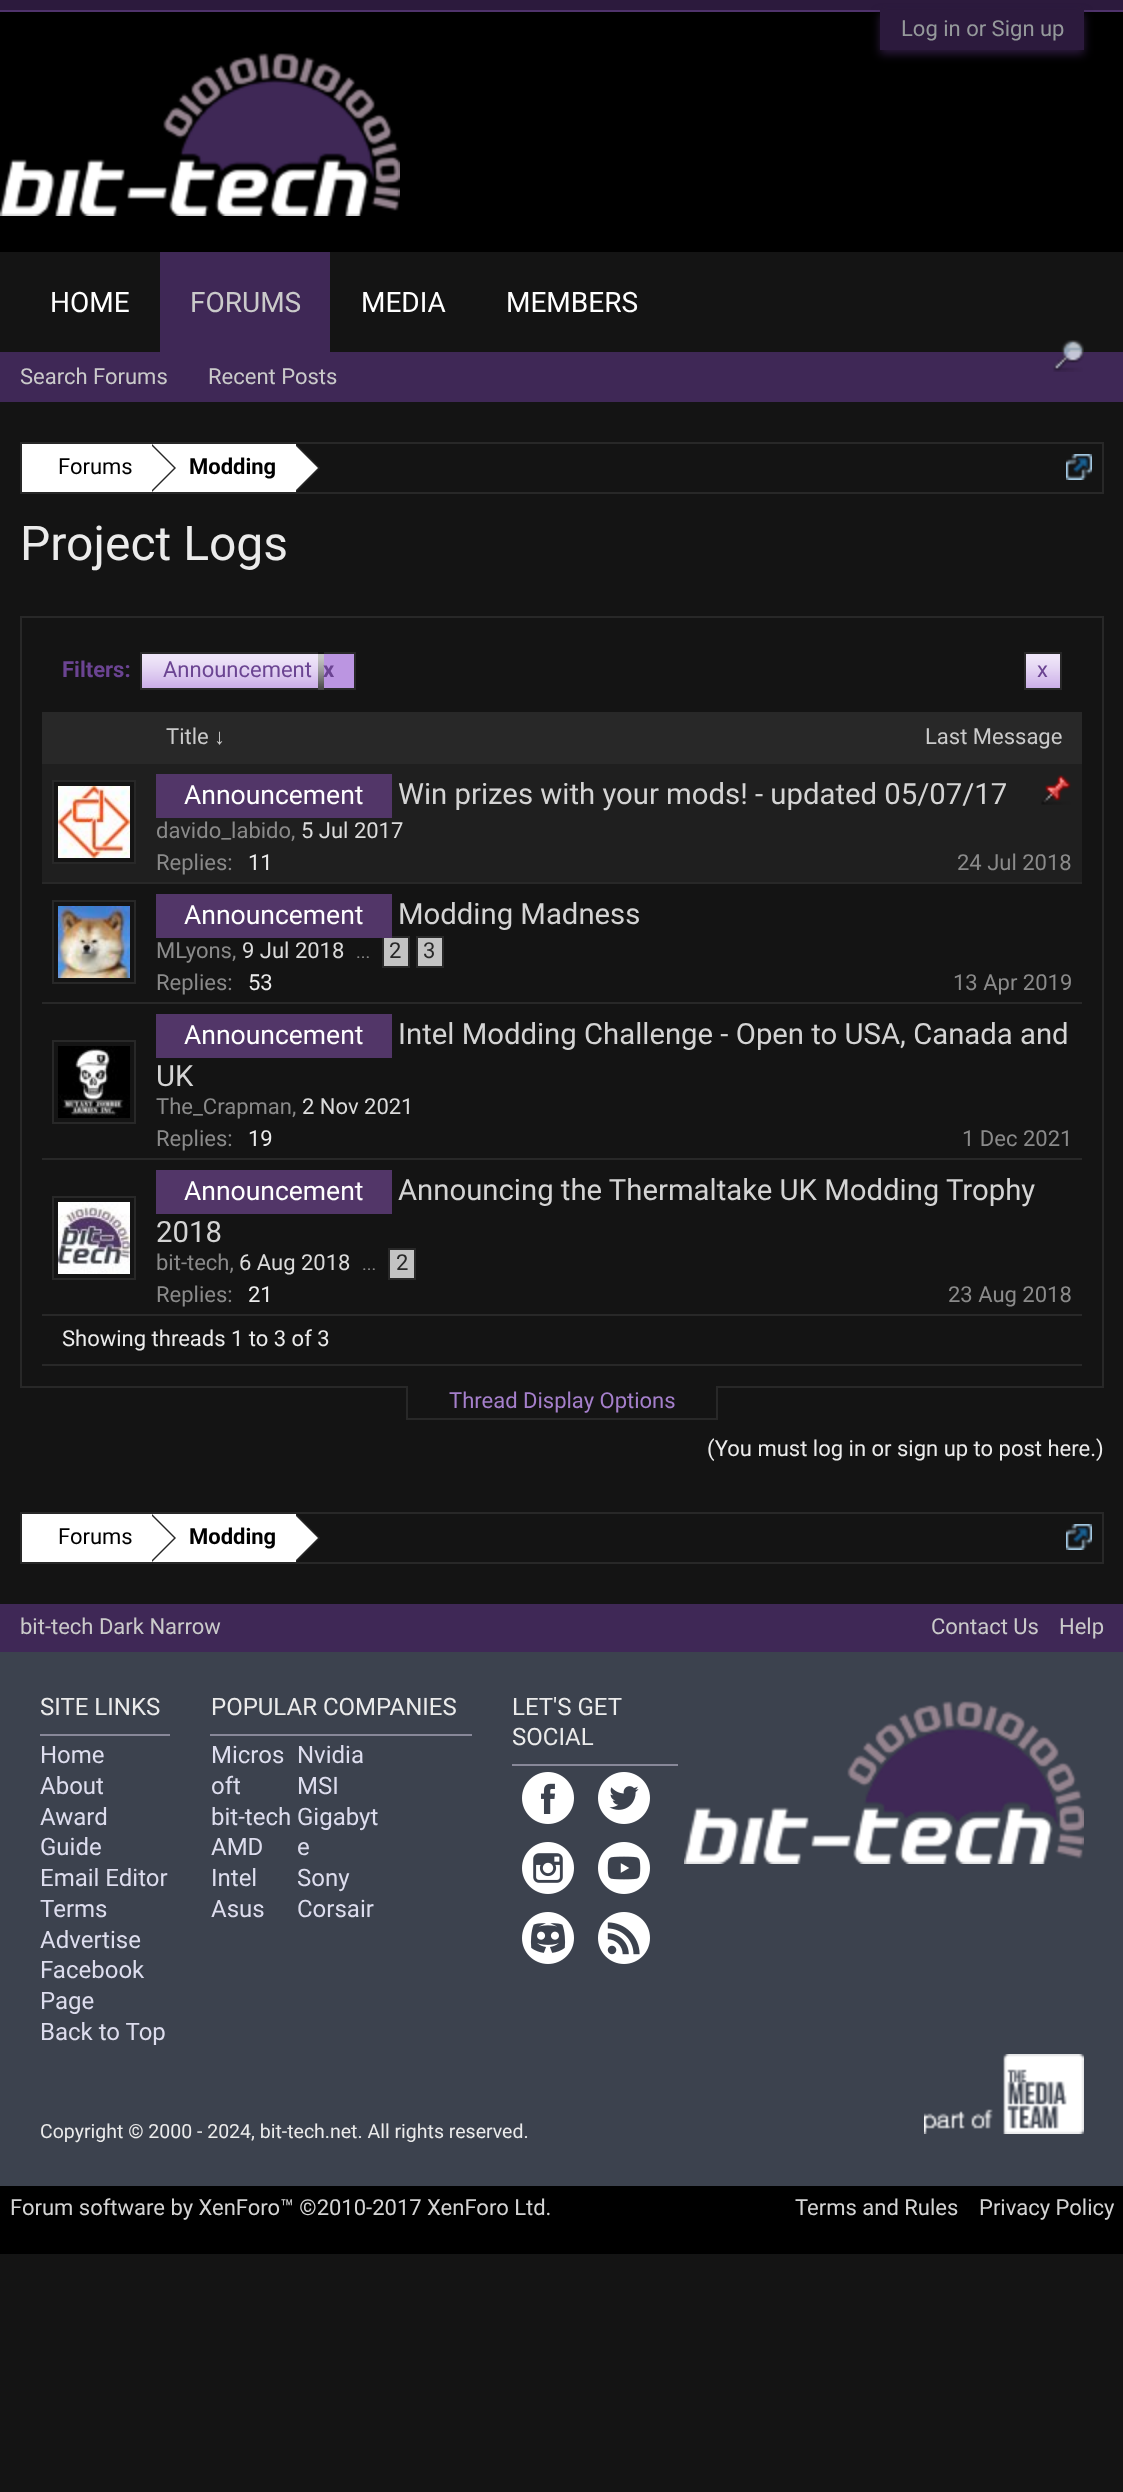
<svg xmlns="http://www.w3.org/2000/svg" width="1123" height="2492">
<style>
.a{font:22px Roboto;fill:#95999b}
.b{font:28px Roboto;fill:#cacaca}
.c{font:22px Roboto;fill:#cacaca}
.d{font:28px Roboto;fill:#fff}
.e{font:22px Roboto;fill:#000}
.f{font:bold 22px Roboto;fill:#000}
.g{font:48px Roboto;fill:#ebebeb}
.h{font:bold 22px Roboto;fill:#6b4492}
.i{font:22px Roboto;fill:#6b4492}
.j{font:22px Liberation Sans;fill:#cacaca}
.k{font:26.5px Roboto;fill:#fff}
.l{font:29.3px Roboto;fill:#d4d4d4}
.m{font:22px Roboto;fill:#8a8a8a}
.n{font:22px Roboto;fill:#dbdbdb}
.o{font:22px Roboto;fill:#ebebeb}
.p{font:18px Roboto;fill:#8a8a8a}
.q{font:22px Roboto;fill:#282828}
.r{font:22px Roboto;fill:#a57fcb}
.s{font:24px Roboto;fill:#ebebeb}
.t{font:24px Roboto;fill:#dde}
.u{font:19.5px Roboto;fill:#ebebeb}
.v{font:22px Roboto;fill:#d4d4d4}
</style>
<rect width="100%" height="100%" fill="#141414"/>
<path fill="#000" d="M0 12h1123v2242H0z"/>
<path fill="#2c1a3d" d="M0 0h1123v10H0z"/>
<path fill="#4f336b" d="M0 10h1123v2H0z"/>
<path fill="#2c1a3d" filter="blur(5px)" d="M880 14h204v40H880z"/>
<path fill="#2c1a3d" d="M880 10h204v40H880z"/>
<image href="1.png" x="0" y="53" width="400" height="163"/>
<path fill="#141414" d="M0 252h1123v100H0z"/>
<path fill="#3f2856" d="M160 252h170v100H160z"/>
<path fill="#3f2856" d="M0 352h1123v50H0z"/>
<image href="2.png" x="1053" y="340" width="31" height="32"/>
<path fill="#141414" d="M0 402h1123v1202H0z"/>
<path fill="none" stroke="#282828" stroke-width="2" d="M21 443h1082v50H21z"/>
<path fill="#fff" d="M22 444h274v48H22z"/>
<path fill="#282828" d="M152 492v-48l24 24z"/>
<path fill="#fff" d="M150 492v-48l24 24z"/>
<path fill="#282828" d="M296 492v-48l24 24z"/>
<path fill="#fff" d="M294 492v-48l24 24z"/>
<image href="3.png" x="1066" y="454" width="26" height="26"/>
<path fill="none" stroke="#282828" stroke-width="2" d="M21 617h1082v770H21z"/>
<path fill="#bb95e1" d="M142 654h176v34H142z"/>
<image href="4.png" x="142" y="654" width="182" height="36"/>
<path fill="#282828" d="M140 652h178v2H140z"/>
<path fill="#282828" d="M140 688h178v2H140z"/>
<path fill="#282828" d="M140 652h2v38H140z"/>
<path fill="#bb95e1" d="M324 654h30v34H324z"/>
<path fill="#282828" d="M324 652h32v2H324z"/>
<path fill="#282828" d="M354 652h2v38H354z"/>
<path fill="#282828" d="M324 688h32v2H324z"/>
<path fill="#bb95e1" d="M1026 654h34v34H1026z"/>
<image href="5.png" x="1026" y="654" width="34" height="34"/>
<path fill="none" stroke="#282828" stroke-width="2" d="M1025 653h36v36H1025z"/>
<path fill="#282828" d="M42 712h1040v52H42z"/>
<path fill="#1f1f1f" d="M42 764h1040v118H42z"/>
<path fill="#282828" d="M42 882h1040v2H42z"/>
<path fill="#141414" stroke="#282828" stroke-width="2" d="M53 781h82v82H53z"/>
<image href="6.png" x="58" y="786" width="72" height="72"/>
<path fill="#523668" d="M156 774h236v44H156z"/>
<image href="7.png" x="1041" y="775" width="30" height="30"/>
<path fill="#282828" d="M42 1002h1040v2H42z"/>
<path fill="none" stroke="#282828" stroke-width="2" d="M53 901h82v82H53z"/>
<image href="8.png" x="58" y="906" width="72" height="72"/>
<path fill="#c3c3c3" stroke="#282828" stroke-width="2" d="M383 937h26v30H383z"/>
<path fill="#523668" d="M156 894h236v44H156z"/>
<path fill="#c3c3c3" stroke="#282828" stroke-width="2" d="M417 937h26v30H417z"/>
<path fill="#282828" d="M42 1158h1040v2H42z"/>
<path fill="none" stroke="#282828" stroke-width="2" d="M53 1041h82v82H53z"/>
<image href="9.png" x="58" y="1046" width="72" height="72"/>
<path fill="#523668" d="M156 1014h236v44H156z"/>
<path fill="#282828" d="M42 1314h1040v2H42z"/>
<path fill="none" stroke="#282828" stroke-width="2" d="M53 1197h82v82H53z"/>
<image href="10.png" x="58" y="1202" width="72" height="72"/>
<path fill="#523668" d="M156 1170h236v44H156z"/>
<path fill="#c3c3c3" stroke="#282828" stroke-width="2" d="M389 1249h26v30H389z"/>
<path fill="#282828" d="M42 1364h1040v2H42z"/>
<path fill="#141414" d="M408 1386h308v2H408z"/>
<path fill="#282828" d="M716 1386h2v34H716z"/>
<path fill="#282828" d="M406 1418h312v2H406z"/>
<path fill="#282828" d="M406 1386h2v34H406z"/>
<path fill="none" stroke="#282828" stroke-width="2" d="M21 1513h1082v50H21z"/>
<path fill="#fff" d="M22 1514h274v48H22z"/>
<path fill="#282828" d="M152 1562v-48l24 24z"/>
<path fill="#fff" d="M150 1562v-48l24 24z"/>
<path fill="#282828" d="M296 1562v-48l24 24z"/>
<path fill="#fff" d="M294 1562v-48l24 24z"/>
<image href="3.png" x="1066" y="1524" width="26" height="26"/>
<path fill="#3f2856" d="M0 1604h1123v48H0z"/>
<path fill="#3c424e" d="M0 1652h1123v534H0z"/>
<path fill="#889" d="M40 1734h130v2H40z"/>
<path fill="#889" d="M210 1734h262v2H210z"/>
<path fill="#889" d="M512 1764h166v2H512z"/>
<image href="11.png" x="522" y="1772" width="52" height="52"/>
<image href="12.png" x="598" y="1772" width="52" height="52"/>
<image href="13.png" x="522" y="1842" width="52" height="52"/>
<image href="14.png" x="598" y="1842" width="52" height="52"/>
<image href="15.png" x="522" y="1912" width="52" height="52"/>
<image href="16.png" x="598" y="1912" width="52" height="52"/>
<image href="17.png" x="684" y="1701" width="400" height="163"/>
<image href="18.png" x="924" y="2054" width="160" height="80"/>
<text class="a" x="901" y="36">Log in or Sign up</text>
<text class="b" x="190" y="312">FORUMS</text>
<text class="c" x="20" y="384">Search Forums</text>
<text class="c" x="208" y="384">Recent Posts</text>
<text class="d" x="50" y="312">HOME</text>
<text class="d" x="361" y="312">MEDIA</text>
<text class="d" x="506" y="312">MEMBERS</text>
<text class="e" x="58" y="474">Forums</text>
<text class="f" x="189" y="474">Modding</text>
<text class="g" x="20" y="560">Project Logs</text>
<text class="h" x="62" y="677">Filters:</text>
<text class="i" x="163" y="677">Announcement</text>
<text class="h" x="323" y="677">x</text>
<text class="i" x="1037" y="677">x</text>
<text class="c" x="166" y="744">Title</text>
<text class="j" x="214" y="744">↓</text>
<text class="c" x="925" y="744">Last Message</text>
<text class="k" x="184" y="804">Announcement</text>
<text class="l" x="398" y="804">Win prizes with your mods! - updated 05/07/17</text>
<text class="m" x="156" y="838">davido_labido,</text>
<text class="n" x="301" y="838">5 Jul 2017</text>
<text class="m" x="156" y="870">Replies:</text>
<text class="o" x="248" y="870">11</text>
<text class="m" x="957" y="870">24 Jul 2018</text>
<text class="k" x="184" y="924">Announcement</text>
<text class="l" x="398" y="924">Modding Madness</text>
<text class="m" x="156" y="958">MLyons,</text>
<text class="n" x="242" y="958">9 Jul 2018</text>
<text class="p" x="356" y="958">...</text>
<text class="q" x="389" y="958">2</text>
<text class="q" x="423" y="958">3</text>
<text class="m" x="156" y="990">Replies:</text>
<text class="o" x="248" y="990">53</text>
<text class="m" x="953" y="990">13 Apr 2019</text>
<text class="k" x="184" y="1044">Announcement</text>
<text class="l" x="398" y="1044">Intel Modding Challenge - Open to USA, Canada and</text>
<text class="l" x="156" y="1086">UK</text>
<text class="m" x="156" y="1114">The_Crapman,</text>
<text class="n" x="302" y="1114">2 Nov 2021</text>
<text class="m" x="156" y="1146">Replies:</text>
<text class="o" x="248" y="1146">19</text>
<text class="m" x="962" y="1146">1 Dec 2021</text>
<text class="k" x="184" y="1200">Announcement</text>
<text class="l" x="398" y="1200">Announcing the Thermaltake UK Modding Trophy</text>
<text class="l" x="156" y="1242">2018</text>
<text class="m" x="156" y="1270">bit-tech,</text>
<text class="n" x="239" y="1270">6 Aug 2018</text>
<text class="p" x="362" y="1270">...</text>
<text class="q" x="396" y="1270">2</text>
<text class="m" x="156" y="1302">Replies:</text>
<text class="o" x="248" y="1302">21</text>
<text class="m" x="948" y="1302">23 Aug 2018</text>
<text class="o" x="62" y="1346">Showing threads 1 to 3 of 3</text>
<text class="r" x="449" y="1408">Thread Display Options</text>
<text class="o" x="707" y="1456">(You must log in or sign up to post here.)</text>
<text class="e" x="58" y="1544">Forums</text>
<text class="f" x="189" y="1544">Modding</text>
<text class="c" x="20" y="1634">bit-tech Dark Narrow</text>
<text class="c" x="931" y="1634">Contact Us</text>
<text class="c" x="1059" y="1634">Help</text>
<text class="s" x="40" y="1715">SITE LINKS</text>
<text class="t" x="40" y="1763">Home</text>
<text class="t" x="40" y="1794">About</text>
<text class="t" x="40" y="1825">Award</text>
<text class="t" x="40" y="1855">Guide</text>
<text class="t" x="40" y="1886">Email Editor</text>
<text class="t" x="40" y="1917">Terms</text>
<text class="t" x="40" y="1948">Advertise</text>
<text class="t" x="40" y="1978">Facebook</text>
<text class="t" x="40" y="2009">Page</text>
<text class="t" x="40" y="2040">Back to Top</text>
<text class="s" x="211" y="1715">POPULAR COMPANIES</text>
<text class="t" x="211" y="1763">Micros</text>
<text class="t" x="211" y="1794">oft</text>
<text class="t" x="211" y="1825">bit-tech</text>
<text class="t" x="211" y="1855">AMD</text>
<text class="t" x="211" y="1886">Intel</text>
<text class="t" x="211" y="1917">Asus</text>
<text class="t" x="297" y="1763">Nvidia</text>
<text class="t" x="297" y="1794">MSI</text>
<text class="t" x="297" y="1825">Gigabyt</text>
<text class="t" x="297" y="1855">e</text>
<text class="t" x="297" y="1886">Sony</text>
<text class="t" x="297" y="1917">Corsair</text>
<text class="s" x="512" y="1715">LET'S GET</text>
<text class="s" x="512" y="1745">SOCIAL</text>
<text class="u" x="40" y="2138">Copyright © 2000 - 2024, bit-tech.net. All rights reserved.</text>
<text class="v" x="10" y="2215">Forum software by XenForo™ ©2010-2017 XenForo Ltd.</text>
<text class="v" x="795" y="2215">Terms and Rules</text>
<text class="v" x="979" y="2215">Privacy Policy</text>
</svg>
